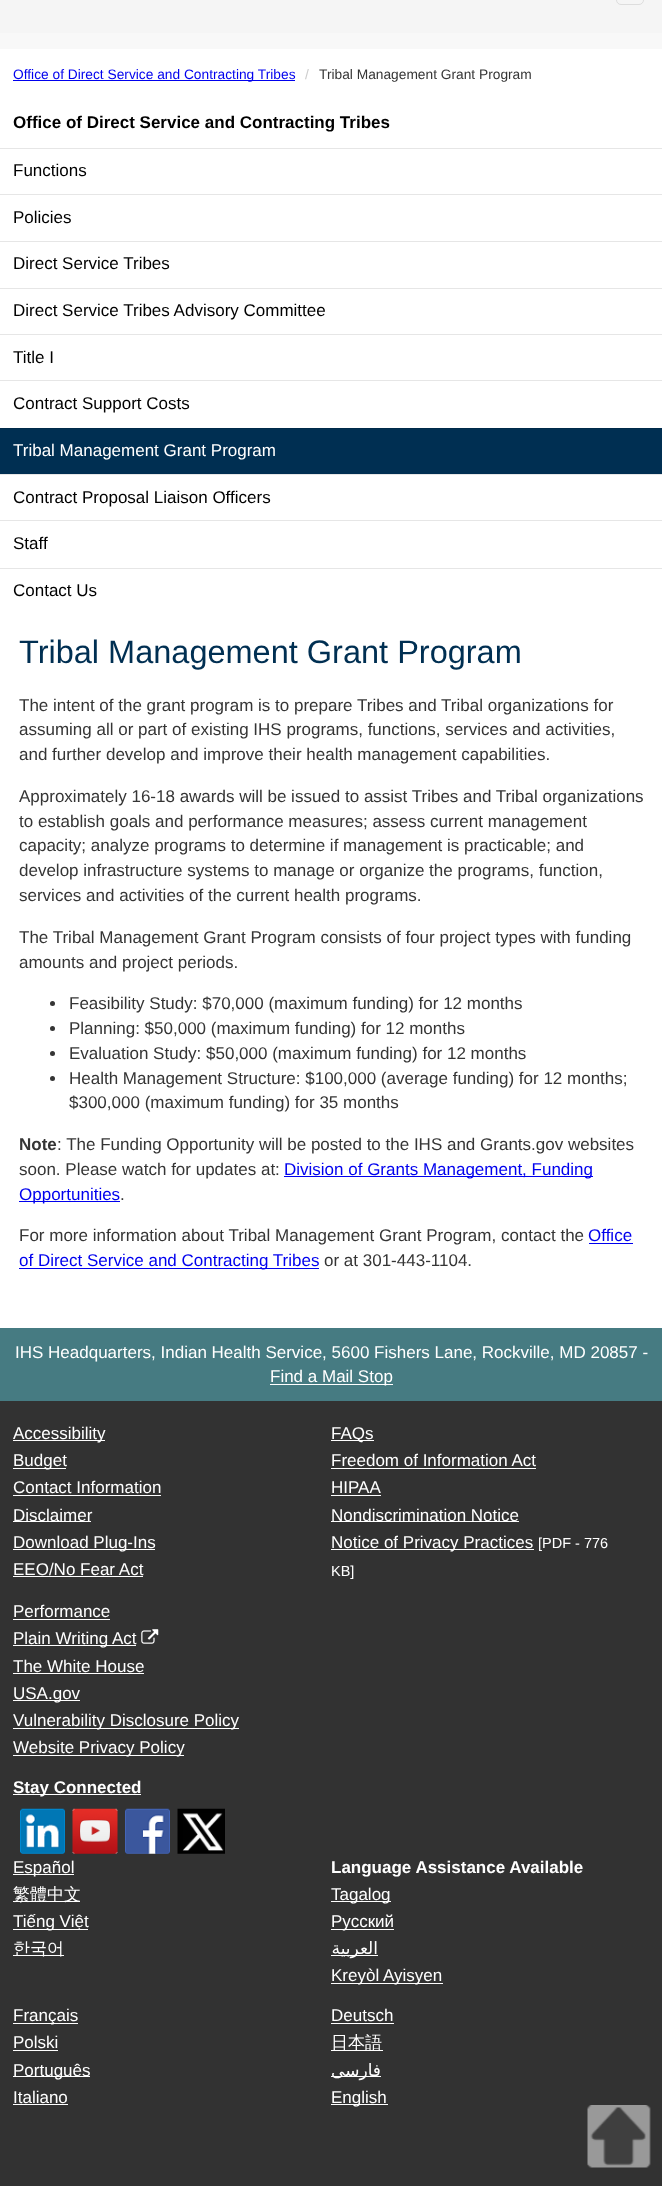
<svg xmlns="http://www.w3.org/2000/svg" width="662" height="2186">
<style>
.a{font:13.75px Liberation Sans;fill:#00e}
.b{font:13.75px Liberation Sans;fill:#ccc}
.c{font:13.75px Liberation Sans;fill:#353535}
.d{font:bold 17px Liberation Sans;fill:#000}
.e{font:17px Liberation Sans;fill:#000}
.f{font:17px Liberation Sans;fill:#fff}
.g{font:32.5px Liberation Sans;fill:#002f52}
.h{font:17px Liberation Sans;fill:#353535}
.i{font:bold 17px Liberation Sans;fill:#353535}
.j{font:17px Liberation Sans;fill:#00e}
.k{font:14.5px Liberation Sans;fill:#fff}
.l{font:bold 17px Liberation Sans;fill:#fff}
.m{font:500 17px WenQuanYi Zen Hei;fill:#fff}
.n{font:17px DejaVu Sans;direction:rtl;fill:#fff}
</style>
<rect width="100%" height="100%" fill="#fff"/>
<path fill="#f8f8f8" d="M0 33h662v16H0z"/>
<path fill="#f5f5f5" d="M0 0h662v33H0z"/>
<rect fill="none" stroke="#ddd" x="616.5" y="-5.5" width="27" height="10" rx="4.5"/>
<path fill="#00e" d="M13 80h282v1H13z"/>
<path fill="#e6e6e6" d="M0 148h662v1H0z"/>
<path fill="#e6e6e6" d="M0 194h662v1H0z"/>
<path fill="#e6e6e6" d="M0 241h662v1H0z"/>
<path fill="#e6e6e6" d="M0 288h662v1H0z"/>
<path fill="#e6e6e6" d="M0 334h662v1H0z"/>
<path fill="#e6e6e6" d="M0 380h662v1H0z"/>
<path fill="#002f52" d="M0 429h662v45H0z"/>
<path fill="#002a4a" d="M0 428h662v1H0z"/>
<path fill="#e6e6e6" d="M0 474h662v1H0z"/>
<path fill="#e6e6e6" d="M0 520h662v1H0z"/>
<path fill="#e6e6e6" d="M0 568h662v1H0z"/>
<circle fill="#353535" cx="52.5" cy="1003.5" r="2.5"/>
<circle fill="#353535" cx="52.5" cy="1028.5" r="2.5"/>
<circle fill="#353535" cx="52.5" cy="1053.5" r="2.5"/>
<circle fill="#353535" cx="52.5" cy="1078.5" r="2.5"/>
<path fill="#00e" d="M284 1176h309v1H284z"/>
<path fill="#00e" d="M19 1201h101v1H19z"/>
<path fill="#00e" d="M589 1243h44v1H589z"/>
<path fill="#00e" d="M19 1268h300v1H19z"/>
<path fill="#467b82" d="M0 1328h662v73H0z"/>
<path fill="#fff" d="M270 1384h123v1H270z"/>
<path fill="#323232" d="M0 1401h662v785H0z"/>
<path fill="#fff" d="M13 1440h92v1H13z"/>
<path fill="#fff" d="M13 1468h53v1H13z"/>
<path fill="#fff" d="M13 1495h148v1H13z"/>
<path fill="#fff" d="M13 1521h78v1H13z"/>
<path fill="#fff" d="M13 1549h142v1H13z"/>
<path fill="#fff" d="M13 1576h130v1H13z"/>
<path fill="#fff" d="M331 1440h43v1H331z"/>
<path fill="#fff" d="M331 1468h205v1H331z"/>
<path fill="#fff" d="M331 1495h50v1H331z"/>
<path fill="#fff" d="M331 1521h188v1H331z"/>
<path fill="#fff" d="M331 1549h203v1H331z"/>
<path fill="#fff" d="M13 1619h97v1H13z"/>
<path fill="#fff" d="M13 1645h123v1H13z"/>
<image href="1.png" x="141" y="1629" width="18" height="15"/>
<path fill="#fff" d="M13 1673h131v1H13z"/>
<path fill="#fff" d="M13 1700h67v1H13z"/>
<path fill="#fff" d="M13 1728h226v1H13z"/>
<path fill="#fff" d="M13 1755h171v1H13z"/>
<path fill="#fff" d="M13 1794h128v1H13z"/>
<image href="2.png" x="20" y="1808" width="45" height="46"/>
<image href="3.png" x="72" y="1808" width="46" height="46"/>
<image href="4.png" x="125" y="1808" width="45" height="46"/>
<image href="5.png" x="177" y="1808" width="48" height="46"/>
<path fill="#fff" d="M13 1874h61v1H13z"/>
<path fill="#fff" d="M13 1901h67v1H13z"/>
<path fill="#fff" d="M13 1929h75v1H13z"/>
<path fill="#fff" d="M13 1955h51v1H13z"/>
<path fill="#fff" d="M331 1901h60v1H331z"/>
<path fill="#fff" d="M331 1929h63v1H331z"/>
<path fill="#fff" d="M331 1955h47v1H331z"/>
<path fill="#fff" d="M331 1983h112v1H331z"/>
<path fill="#fff" d="M13 2023h65v1H13z"/>
<path fill="#fff" d="M13 2050h45v1H13z"/>
<path fill="#fff" d="M13 2076h77v1H13z"/>
<path fill="#fff" d="M13 2104h55v1H13z"/>
<path fill="#fff" d="M331 2023h63v1H331z"/>
<path fill="#fff" d="M331 2050h52v1H331z"/>
<path fill="#fff" d="M331 2076h50v1H331z"/>
<path fill="#fff" d="M331 2104h57v1H331z"/>
<image href="6.png" x="587" y="2105" width="64" height="63"/>
<text class="a" x="13" y="79">Office of Direct Service and Contracting Tribes</text>
<text class="b" x="305" y="79">/</text>
<text class="c" x="319" y="79">Tribal Management Grant Program</text>
<text class="d" x="13" y="128">Office of Direct Service and Contracting Tribes</text>
<text class="e" x="13" y="176">Functions</text>
<text class="e" x="13" y="223">Policies</text>
<text class="e" x="13" y="269">Direct Service Tribes</text>
<text class="e" x="13" y="316">Direct Service Tribes Advisory Committee</text>
<text class="e" x="13" y="363">Title I</text>
<text class="e" x="13" y="409">Contract Support Costs</text>
<text class="f" x="13" y="456">Tribal Management Grant Program</text>
<text class="e" x="13" y="503">Contract Proposal Liaison Officers</text>
<text class="e" x="13" y="549">Staff</text>
<text class="e" x="13" y="596">Contact Us</text>
<text class="g" x="19" y="663">Tribal Management Grant Program</text>
<text class="h" x="19" y="711">The intent of the grant program is to prepare Tribes and Tribal organizations for</text>
<text class="h" x="19" y="735">assuming all or part of existing IHS programs, functions, services and activities,</text>
<text class="h" x="19" y="760">and further develop and improve their health management capabilities.</text>
<text class="h" x="19" y="802">Approximately 16-18 awards will be issued to assist Tribes and Tribal organizations</text>
<text class="h" x="19" y="827">to establish goals and performance measures; assess current management</text>
<text class="h" x="19" y="851">capacity; analyze programs to determine if management is practicable; and</text>
<text class="h" x="19" y="876">develop infrastructure systems to manage or organize the programs, function,</text>
<text class="h" x="19" y="901">services and activities of the current health programs.</text>
<text class="h" x="19" y="943">The Tribal Management Grant Program consists of four project types with funding</text>
<text class="h" x="19" y="968">amounts and project periods.</text>
<text class="h" x="69" y="1009">Feasibility Study: $70,000 (maximum funding) for 12 months</text>
<text class="h" x="69" y="1034">Planning: $50,000 (maximum funding) for 12 months</text>
<text class="h" x="69" y="1059">Evaluation Study: $50,000 (maximum funding) for 12 months</text>
<text class="h" x="69" y="1084">Health Management Structure: $100,000 (average funding) for 12 months;</text>
<text class="h" x="69" y="1108">$300,000 (maximum funding) for 35 months</text>
<text class="i" x="19" y="1150">Note</text>
<text class="h" x="57" y="1150">: The Funding Opportunity will be posted to the IHS and Grants.gov websites</text>
<text class="h" x="19" y="1175">soon. Please watch for updates at:</text>
<text class="j" x="284" y="1175">Division of Grants Management, Funding</text>
<text class="j" x="19" y="1200">Opportunities</text>
<text class="h" x="120" y="1200">.</text>
<text class="h" x="19" y="1241">For more information about Tribal Management Grant Program, contact the</text>
<text class="j" x="588" y="1241">Office</text>
<text class="j" x="19" y="1266">of Direct Service and Contracting Tribes</text>
<text class="h" x="324" y="1266">or at 301-443-1104.</text>
<text class="f" x="15" y="1358">IHS Headquarters, Indian Health Service, 5600 Fishers Lane, Rockville, MD 20857 -</text>
<text class="f" x="270" y="1382">Find a Mail Stop</text>
<text class="f" x="13" y="1439">Accessibility</text>
<text class="f" x="13" y="1466">Budget</text>
<text class="f" x="13" y="1493">Contact Information</text>
<text class="f" x="13" y="1521">Disclaimer</text>
<text class="f" x="13" y="1548">Download Plug-Ins</text>
<text class="f" x="13" y="1575">EEO/No Fear Act</text>
<text class="f" x="331" y="1439">FAQs</text>
<text class="f" x="331" y="1466">Freedom of Information Act</text>
<text class="f" x="331" y="1493">HIPAA</text>
<text class="f" x="331" y="1521">Nondiscrimination Notice</text>
<text class="f" x="331" y="1548">Notice of Privacy Practices</text>
<text class="k" x="538" y="1548">[PDF - 776</text>
<text class="k" x="331" y="1576">KB]</text>
<text class="f" x="13" y="1617">Performance</text>
<text class="f" x="13" y="1644">Plain Writing Act</text>
<text class="f" x="13" y="1672">The White House</text>
<text class="f" x="13" y="1699">USA.gov</text>
<text class="f" x="13" y="1726">Vulnerability Disclosure Policy</text>
<text class="f" x="13" y="1753">Website Privacy Policy</text>
<text class="l" x="13" y="1793">Stay Connected</text>
<text class="f" x="13" y="1873">Español</text>
<text class="m" x="13" y="1900">繁體中文</text>
<text class="f" x="13" y="1927">Tiếng Việt</text>
<text class="m" x="13" y="1954">한국어</text>
<text class="l" x="331" y="1873">Language Assistance Available</text>
<text class="f" x="331" y="1900">Tagalog</text>
<text class="f" x="331" y="1927">Русский</text>
<text class="n" x="378" y="1954">العربية</text>
<text class="f" x="331" y="1981">Kreyòl Ayisyen</text>
<text class="f" x="13" y="2021">Français</text>
<text class="f" x="13" y="2048">Polski</text>
<text class="f" x="13" y="2076">Português</text>
<text class="f" x="13" y="2103">Italiano</text>
<text class="f" x="331" y="2021">Deutsch</text>
<text class="m" x="331" y="2048">日本語</text>
<text class="n" x="381" y="2076">فارسی</text>
<text class="f" x="331" y="2103">English</text>
</svg>
